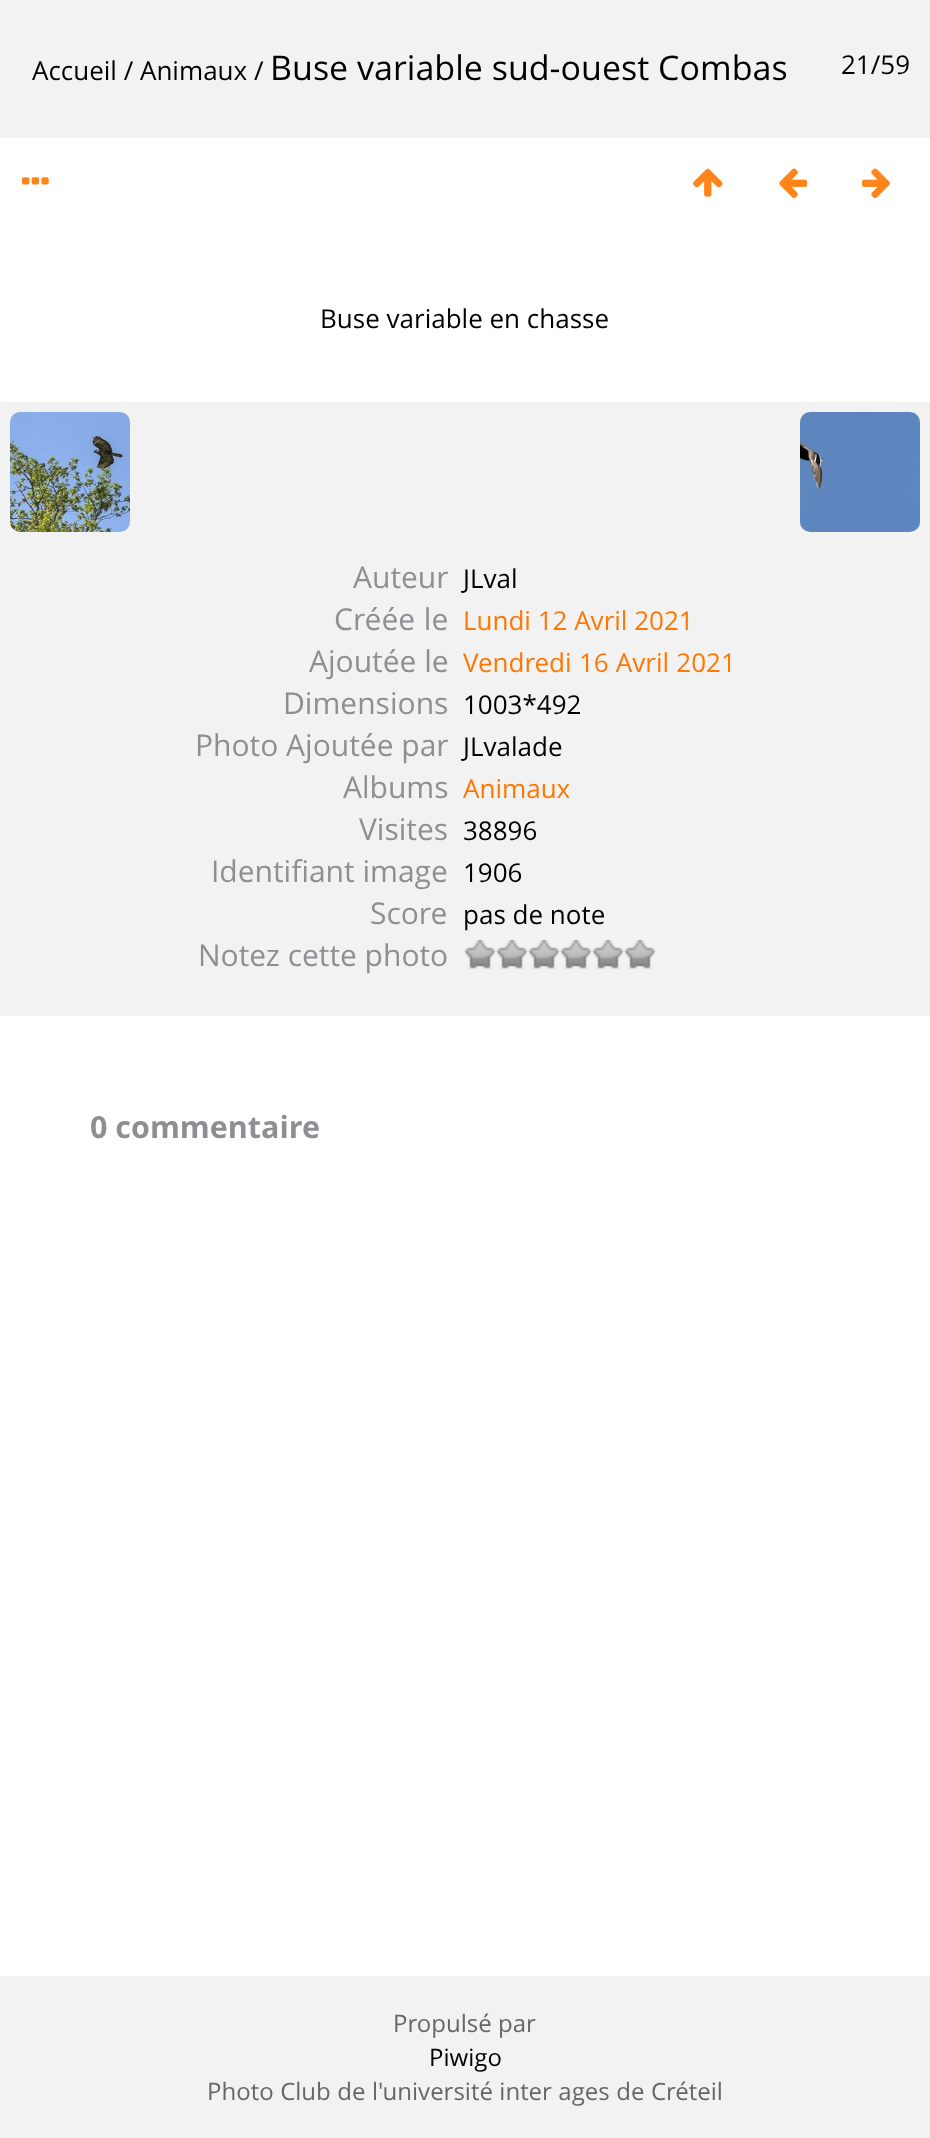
<svg xmlns="http://www.w3.org/2000/svg" width="930" height="2138">
<style>
.a{font:26px Open Sans;fill:#000}
.b{font:34px Open Sans;fill:#000}
.c{font:30px Open Sans;fill:#8e8e93}
.d{font:26px Open Sans;fill:#f70}
.e{font:bold 30.5px Open Sans;fill:#8e8e93}
.f{font:24px Open Sans;fill:#666}
.g{font:24px Open Sans;fill:#000}
</style>
<rect width="100%" height="100%" fill="#fff"/>
<path fill="#f2f2f2" d="M0 0h930v138H0z"/>
<image href="1.png" x="22" y="177" width="27" height="8"/>
<image href="2.png" x="693" y="168" width="30" height="29"/>
<image href="3.png" x="779" y="168" width="29" height="30"/>
<image href="4.png" x="862" y="168" width="28" height="31"/>
<path fill="#f2f2f2" d="M0 402h930v614H0z"/>
<image href="5.png" x="10" y="412" width="120" height="120"/>
<image href="6.png" x="800" y="412" width="120" height="120"/>
<image href="7.png" x="464" y="940" width="32" height="29"/>
<image href="7.png" x="496" y="940" width="32" height="29"/>
<image href="7.png" x="528" y="940" width="32" height="29"/>
<image href="7.png" x="560" y="940" width="32" height="29"/>
<image href="7.png" x="592" y="940" width="32" height="29"/>
<image href="7.png" x="624" y="940" width="32" height="29"/>
<path fill="#f2f2f2" d="M0 1976h930v162H0z"/>
<text class="a" x="32" y="80">Accueil / Animaux /</text>
<text class="b" x="270" y="80">Buse variable sud-ouest Combas</text>
<text class="a" x="841" y="74">21/59</text>
<text class="a" x="320" y="328">Buse variable en chasse</text>
<text class="c" x="353" y="588">Auteur</text>
<text class="a" x="463" y="588">JLval</text>
<text class="c" x="334" y="630" word-spacing="1">Créée le</text>
<text class="d" x="463" y="630">Lundi 12 Avril 2021</text>
<text class="c" x="309" y="672">Ajoutée le</text>
<text class="d" x="463" y="672" word-spacing="0.5">Vendredi 16 Avril 2021</text>
<text class="c" x="283" y="714">Dimensions</text>
<text class="a" x="463" y="714">1003*492</text>
<text class="c" x="195" y="756">Photo Ajoutée par</text>
<text class="a" x="463" y="756">JLvalade</text>
<text class="c" x="343" y="798">Albums</text>
<text class="d" x="463" y="798">Animaux</text>
<text class="c" x="359" y="840">Visites</text>
<text class="a" x="463" y="840">38896</text>
<text class="c" x="211" y="882">Identifiant image</text>
<text class="a" x="463" y="882">1906</text>
<text class="c" x="370" y="924">Score</text>
<text class="a" x="463" y="924">pas de note</text>
<text class="c" x="198" y="966">Notez cette photo</text>
<text class="e" x="90" y="1138">0 commentaire</text>
<text class="f" x="393" y="2032">Propulsé par</text>
<text class="g" x="429" y="2066">Piwigo</text>
<text class="f" x="207" y="2100" word-spacing="0.25">Photo Club de l'université inter ages de Créteil</text>
</svg>
